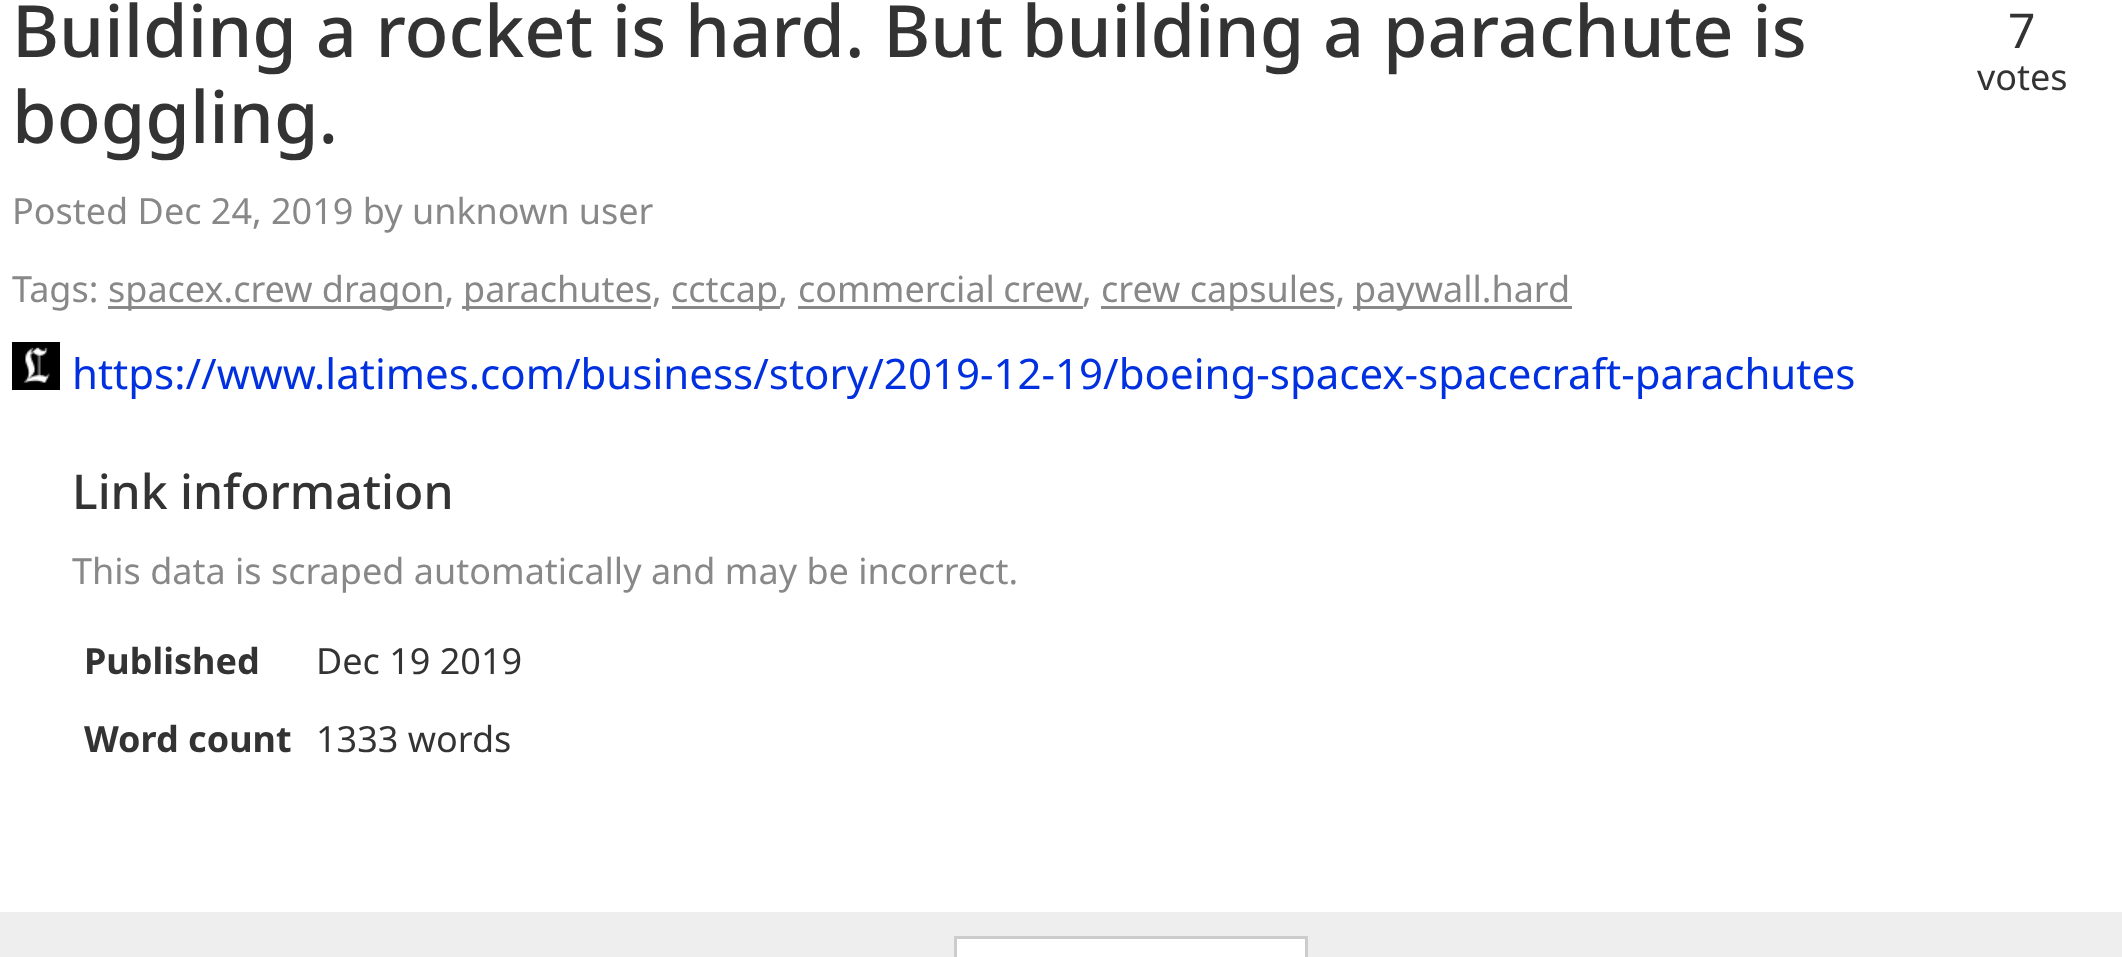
<svg xmlns="http://www.w3.org/2000/svg" width="2122" height="957">
<style>
.a{font:500 72px Noto Sans;fill:#333}
.b{font:48px Noto Sans;fill:#333}
.c{font:36px Noto Sans;fill:#333}
.d{font:36px Noto Sans;fill:#888}
.e{font:42px Noto Sans;fill:#0030e0}
.f{font:500 48px Noto Sans;fill:#333}
.g{font:bold 36px Noto Sans;fill:#333}
</style>
<rect width="100%" height="100%" fill="#eee"/>
<path fill="#fff" d="M0 0h2122v912H0z"/>
<path fill="#888" d="M108 306h336v3H108z"/>
<path fill="#888" d="M462 306h189v3H462z"/>
<path fill="#888" d="M672 306h108v3H672z"/>
<path fill="#888" d="M798 306h285v3H798z"/>
<path fill="#888" d="M1101 306h234v3H1101z"/>
<path fill="#888" d="M1353 306h219v3H1353z"/>
<image href="1.png" x="12" y="342" width="48" height="48"/>
<path fill="#fff" stroke="#ccc" stroke-width="3" d="M955.5 937.5h351v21H955.5z"/>
<text class="a" x="12" y="57">Building a rocket is hard. But building a parachute is</text>
<text class="a" x="12" y="143">boggling.</text>
<text class="b" x="2008" y="48">7</text>
<text class="c" x="1977" y="90">votes</text>
<text class="d" x="12" y="224">Posted Dec 24, 2019 by unknown user</text>
<text class="d" x="12" y="302">Tags:</text>
<text class="d" x="108" y="302">spacex.crew dragon,</text>
<text class="d" x="463" y="302">parachutes,</text>
<text class="d" x="671" y="302">cctcap,</text>
<text class="d" x="798" y="302" word-spacing="-1">commercial crew</text>
<text class="d" x="1082" y="302">,</text>
<text class="d" x="1101" y="302">crew capsules,</text>
<text class="d" x="1354" y="302">paywall.hard</text>
<text class="e" x="72" y="389">https://www.latimes.com/business/story/2019-12-19/boeing-spacex-spacecraft-parachutes</text>
<text class="f" x="72" y="509">Link information</text>
<text class="d" x="72" y="584">This data is scraped automatically and may be incorrect.</text>
<text class="g" x="84" y="674">Published</text>
<text class="c" x="316" y="674">Dec 19 2019</text>
<text class="g" x="84" y="752">Word count</text>
<text class="c" x="316" y="752">1333 words</text>
</svg>
